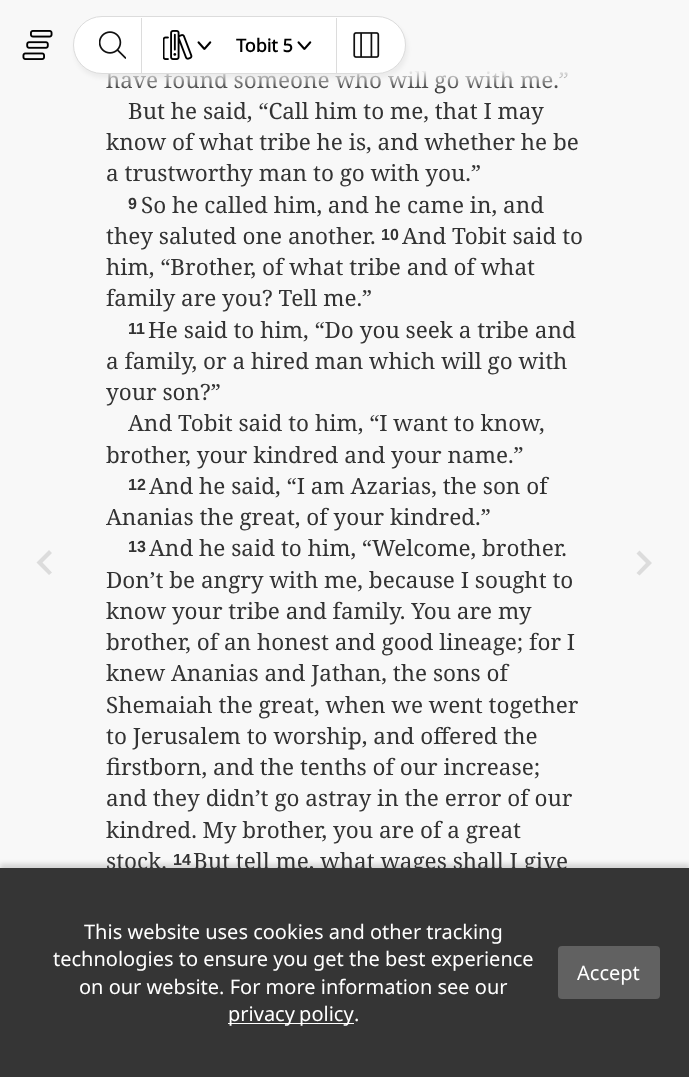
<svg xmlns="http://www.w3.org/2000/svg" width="689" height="1077">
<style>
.a{font:22.5px Noto Serif;fill:#333}
.b{font:bold 18px Noto Sans;fill:#000}
.c{font:bold 16px Liberation Sans;fill:#333}
.d{font:20px Noto Sans;fill:#fff}
</style>
<defs>
<linearGradient id="g1" gradientUnits="userSpaceOnUse" x1="345" y1="0" x2="345" y2="90"><stop offset="0.78" stop-color="#f8f8f8"/><stop offset="1" stop-color="#f8f8f8" stop-opacity="0"/></linearGradient>
</defs>
<rect width="100%" height="100%" fill="#f8f8f8"/>
<image href="1.png" x="22" y="30" width="31" height="30"/>
<path fill="#dcdcdc" d="M52 572.5l-9.5-10l9.5-9.5l-3-3l-12.5 12.5l12.5 12.5z"/>
<path fill="#dcdcdc" d="M636.5 573l9.5-10l-9.5-9.5l3-3l12.5 12.5l-12.5 12.5z"/>
<path fill="#00000026" filter="blur(2.5px)" d="M0 864h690v210H0z"/>
<text class="a" x="106" y="88">have found someone who will go with me.”</text>
<path fill="url(#g1)" d="M106 70h462v20H106z"/>
<rect fill="#0000000d" filter="blur(2px)" x="74" y="20" width="334" height="58" rx="29"/>
<rect fill="#fff" stroke="#dcdcdc" x="73.5" y="16.5" width="332" height="57" rx="28.5"/>
<image href="5.png" x="353" y="32" width="27" height="26"/>
<path fill="#dcdcdc" d="M336 18h1v55H336z"/>
<image href="2.png" x="99" y="31" width="27" height="28"/>
<path fill="#dcdcdc" d="M141 18h1v55H141z"/>
<image href="4.png" x="297" y="41" width="15" height="9"/>
<image href="4.png" x="197" y="41" width="15" height="9"/>
<image href="3.png" x="163" y="30" width="30" height="30"/>
<text class="b" x="236" y="52">Tobit 5</text>
<text class="a" x="128" y="119">But he said, “Call him to me, that I may</text>
<text class="a" x="106" y="150">know of what tribe he is, and whether he be</text>
<text class="a" x="106" y="181">a trustworthy man to go with you.”</text>
<text class="c" x="128" y="209">9</text>
<text class="a" x="141" y="213">So he called him, and he came in, and</text>
<text class="a" x="106" y="244">they saluted one another.</text>
<text class="c" x="381" y="240">10</text>
<text class="a" x="402" y="244">And Tobit said to</text>
<text class="a" x="106" y="275">him, “Brother, of what tribe and of what</text>
<text class="a" x="106" y="306">family are you? Tell me.”</text>
<text class="c" x="128" y="334">11</text>
<text class="a" x="148" y="338">He said to him, “Do you seek a tribe and</text>
<text class="a" x="106" y="369">a family, or a hired man which will go with</text>
<text class="a" x="106" y="400">your son?”</text>
<text class="a" x="128" y="431">And Tobit said to him, “I want to know,</text>
<text class="a" x="106" y="463">brother, your kindred and your name.”</text>
<text class="c" x="128" y="490">12</text>
<text class="a" x="149" y="494">And he said, “I am Azarias, the son of</text>
<text class="a" x="106" y="525">Ananias the great, of your kindred.”</text>
<text class="c" x="128" y="552">13</text>
<text class="a" x="149" y="556">And he said to him, “Welcome, brother.</text>
<text class="a" x="106" y="588">Don’t be angry with me, because I sought to</text>
<text class="a" x="106" y="619">know your tribe and family. You are my</text>
<text class="a" x="106" y="650">brother, of an honest and good lineage; for I</text>
<text class="a" x="106" y="681">knew Ananias and Jathan, the sons of</text>
<text class="a" x="106" y="713">Shemaiah the great, when we went together</text>
<text class="a" x="106" y="744">to Jerusalem to worship, and offered the</text>
<text class="a" x="106" y="775">firstborn, and the tenths of our increase;</text>
<text class="a" x="106" y="806">and they didn’t go astray in the error of our</text>
<text class="a" x="106" y="838">kindred. My brother, you are of a great</text>
<text class="a" x="106" y="869">stock.</text>
<text class="c" x="173" y="865">14</text>
<text class="a" x="193" y="869">But tell me, what wages shall I give</text>
<path fill="#353535" d="M0 868h689v209H0z"/>
<text class="d" x="84" y="939">This website uses cookies and other tracking</text>
<text class="d" x="53" y="966">technologies to ensure you get the best experience</text>
<text class="d" x="79" y="994">on our website. For more information see our</text>
<path fill="#fff" d="M228 1023h126v1H228z"/>
<text class="d" x="228" y="1021" word-spacing="-1">privacy policy</text>
<text class="d" x="354" y="1021">.</text>
<rect fill="#616161" x="558" y="946" width="102" height="53" rx="4"/>
<text class="d" x="577" y="980">Accept</text>
</svg>
